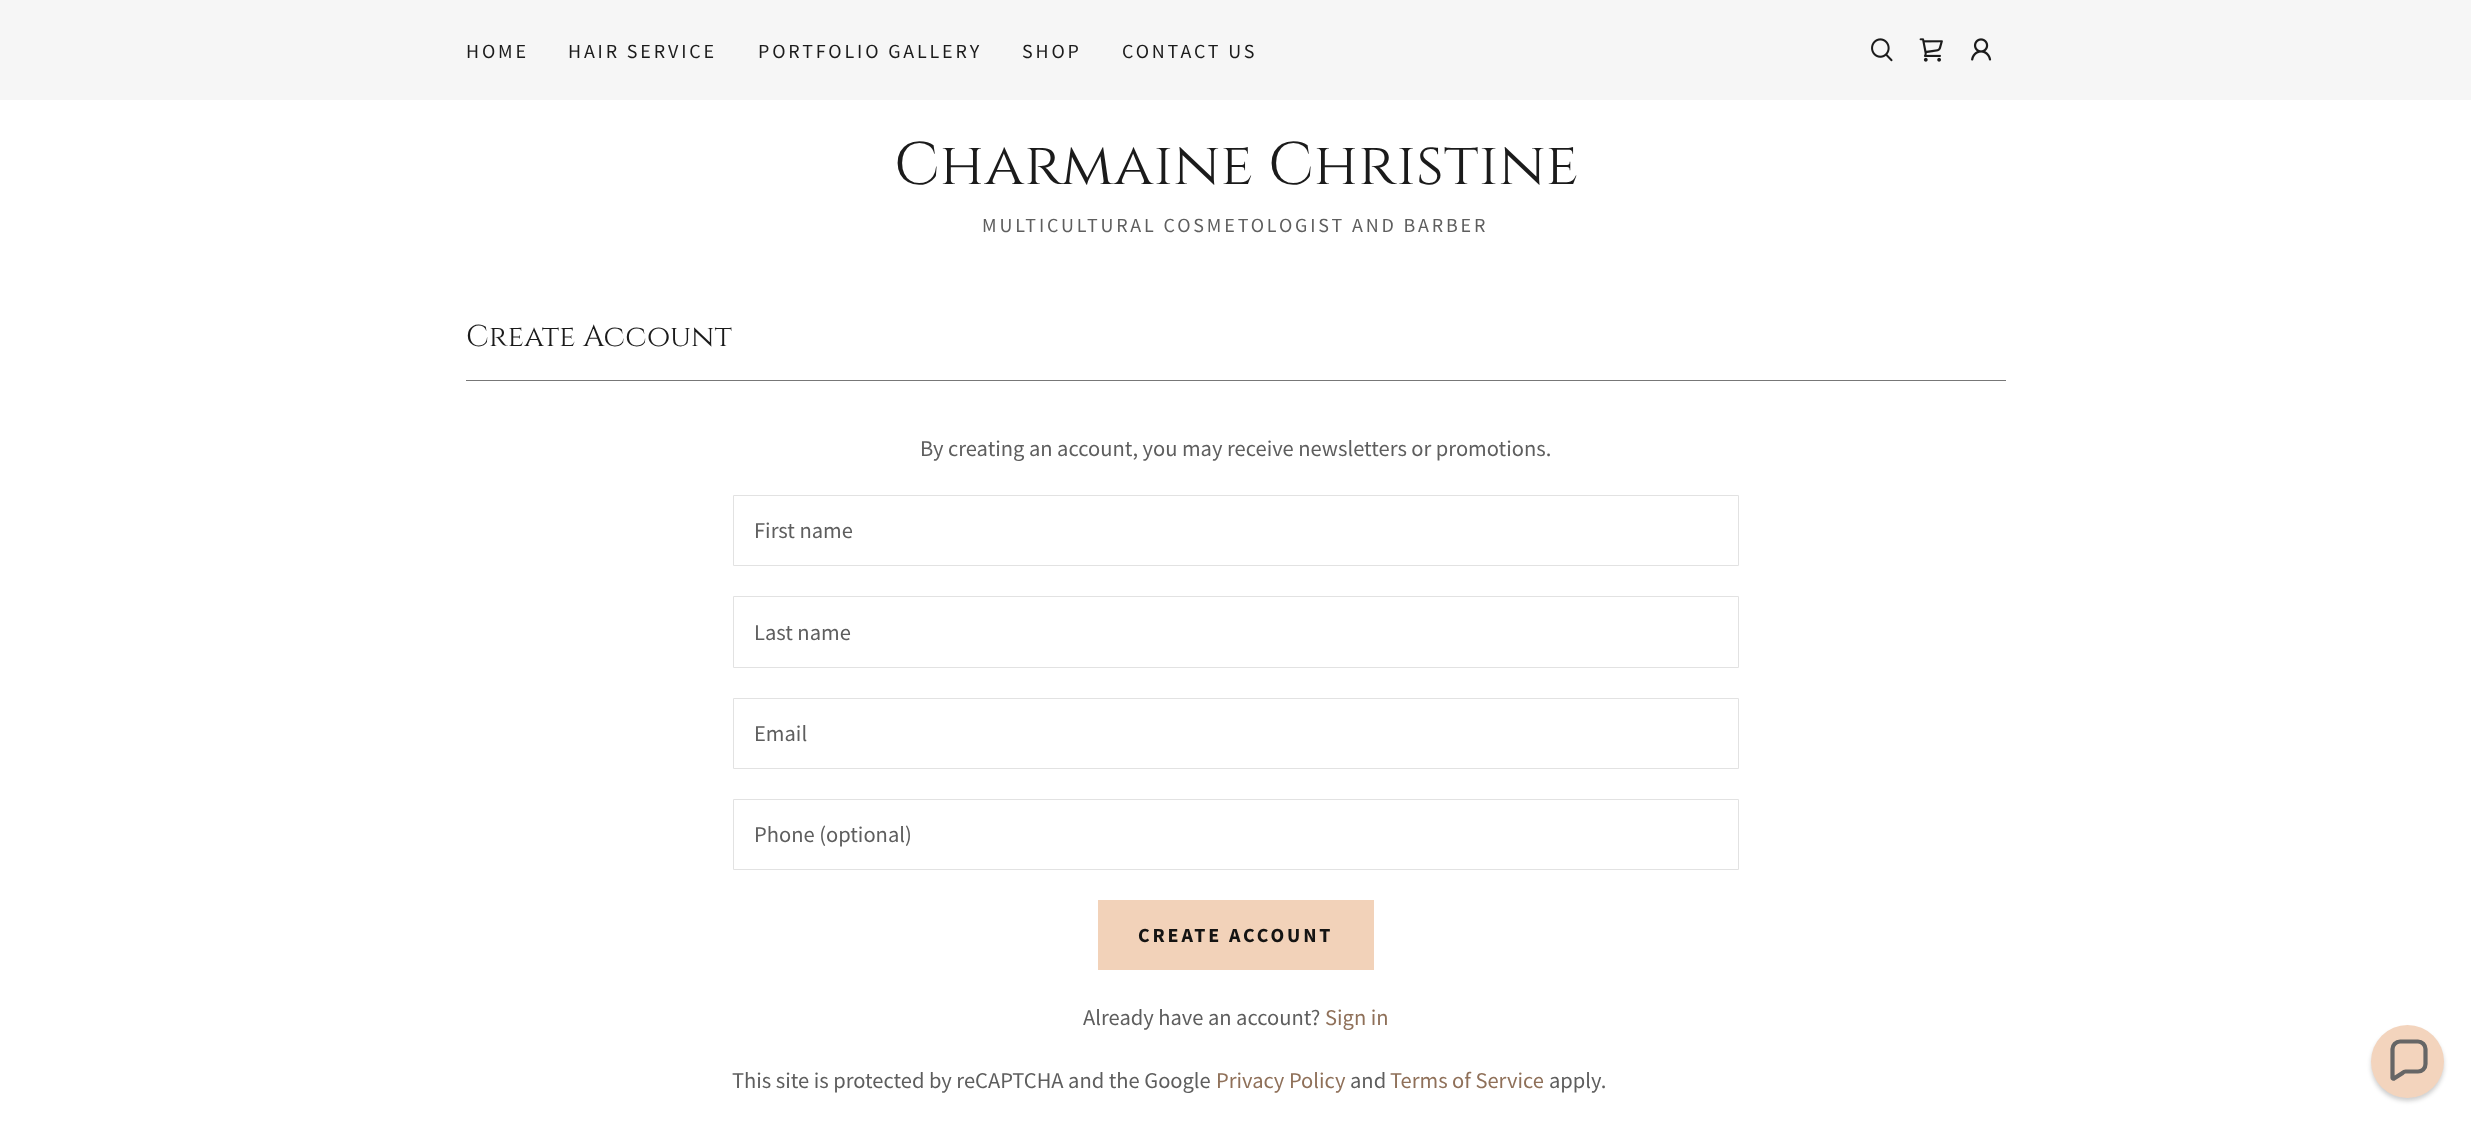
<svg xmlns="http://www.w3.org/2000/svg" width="2471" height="1124">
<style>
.a{font:20px Source Sans Pro;letter-spacing:2.85px;fill:#1b1b1b}
.b{font:60px Cinzel;fill:#1b1b1b}
.c{font:20px Source Sans Pro;letter-spacing:2.85px;fill:#5e5e5e}
.d{font:30px Cinzel;fill:#1b1b1b}
.e{font:22.5px Source Sans Pro;fill:#5e5e5e}
.f{font:bold 20px Source Sans Pro;letter-spacing:2.85px;fill:#151413}
.g{font:22.5px Source Sans Pro;fill:#8f7059}
</style>
<rect width="100%" height="100%" fill="#fff"/>
<path fill="#f6f6f6" d="M0 0h2471v100H0z"/>
<image href="1.png" x="1871" y="38" width="22" height="24"/>
<image href="2.png" x="1919" y="38" width="24" height="24"/>
<image href="3.png" x="1971" y="38" width="21" height="23"/>
<path fill="#777" d="M466 380h1540v1H466z"/>
<path fill="none" stroke="#e2e2e2" d="M733.5 495.5h1005v70H733.5z"/>
<path fill="none" stroke="#e2e2e2" d="M733.5 596.5h1005v71H733.5z"/>
<path fill="none" stroke="#e2e2e2" d="M733.5 698.5h1005v70H733.5z"/>
<path fill="none" stroke="#e2e2e2" d="M733.5 799.5h1005v70H733.5z"/>
<path fill="#f2d2b9" d="M1098 900h276v70H1098z"/>
<rect fill="#0d0d0d33" filter="blur(2px)" x="2371" y="1029" width="73" height="72" rx="36"/>
<circle fill="#f3d4bd" cx="2407.5" cy="1061.5" r="36.5"/>
<path fill="none" stroke="#666" stroke-width="4.2" d="M2418 1041.5h-18c-4 0-7.5 3.5-7.5 7.5v29c0 .5 1 1 1.5 .5l8.5-5.5c1-1 2-1.5 3-1.5h12.5c4 0 7.5-3 7.5-7.5v-15c0-4-3.5-7.5-7.5-7.5z"/>
<text class="a" x="466" y="58">HOME</text>
<text class="a" x="568" y="58">HAIR SERVICE</text>
<text class="a" x="758" y="58">PORTFOLIO GALLERY</text>
<text class="a" x="1022" y="58">SHOP</text>
<text class="a" x="1122" y="58">CONTACT US</text>
<text class="b" x="894" y="184">Charmaine Christine</text>
<text class="c" x="982" y="232">MULTICULTURAL COSMETOLOGIST AND BARBER</text>
<text class="d" x="466" y="346">Create Account</text>
<text class="e" x="920" y="456">By creating an account, you may receive newsletters or promotions.</text>
<text class="e" x="754" y="538">First name</text>
<text class="e" x="754" y="640">Last name</text>
<text class="e" x="754" y="741">Email</text>
<text class="e" x="754" y="842">Phone (optional)</text>
<text class="f" x="1138" y="942">CREATE ACCOUNT</text>
<text class="e" x="1083" y="1025">Already have an account?</text>
<text class="g" x="1325" y="1025">Sign in</text>
<text class="e" x="732" y="1088">This site is protected by reCAPTCHA and the Google</text>
<text class="g" x="1216" y="1088">Privacy Policy</text>
<text class="e" x="1350" y="1088">and</text>
<text class="g" x="1390" y="1088">Terms of Service</text>
<text class="e" x="1549" y="1088">apply.</text>
</svg>
